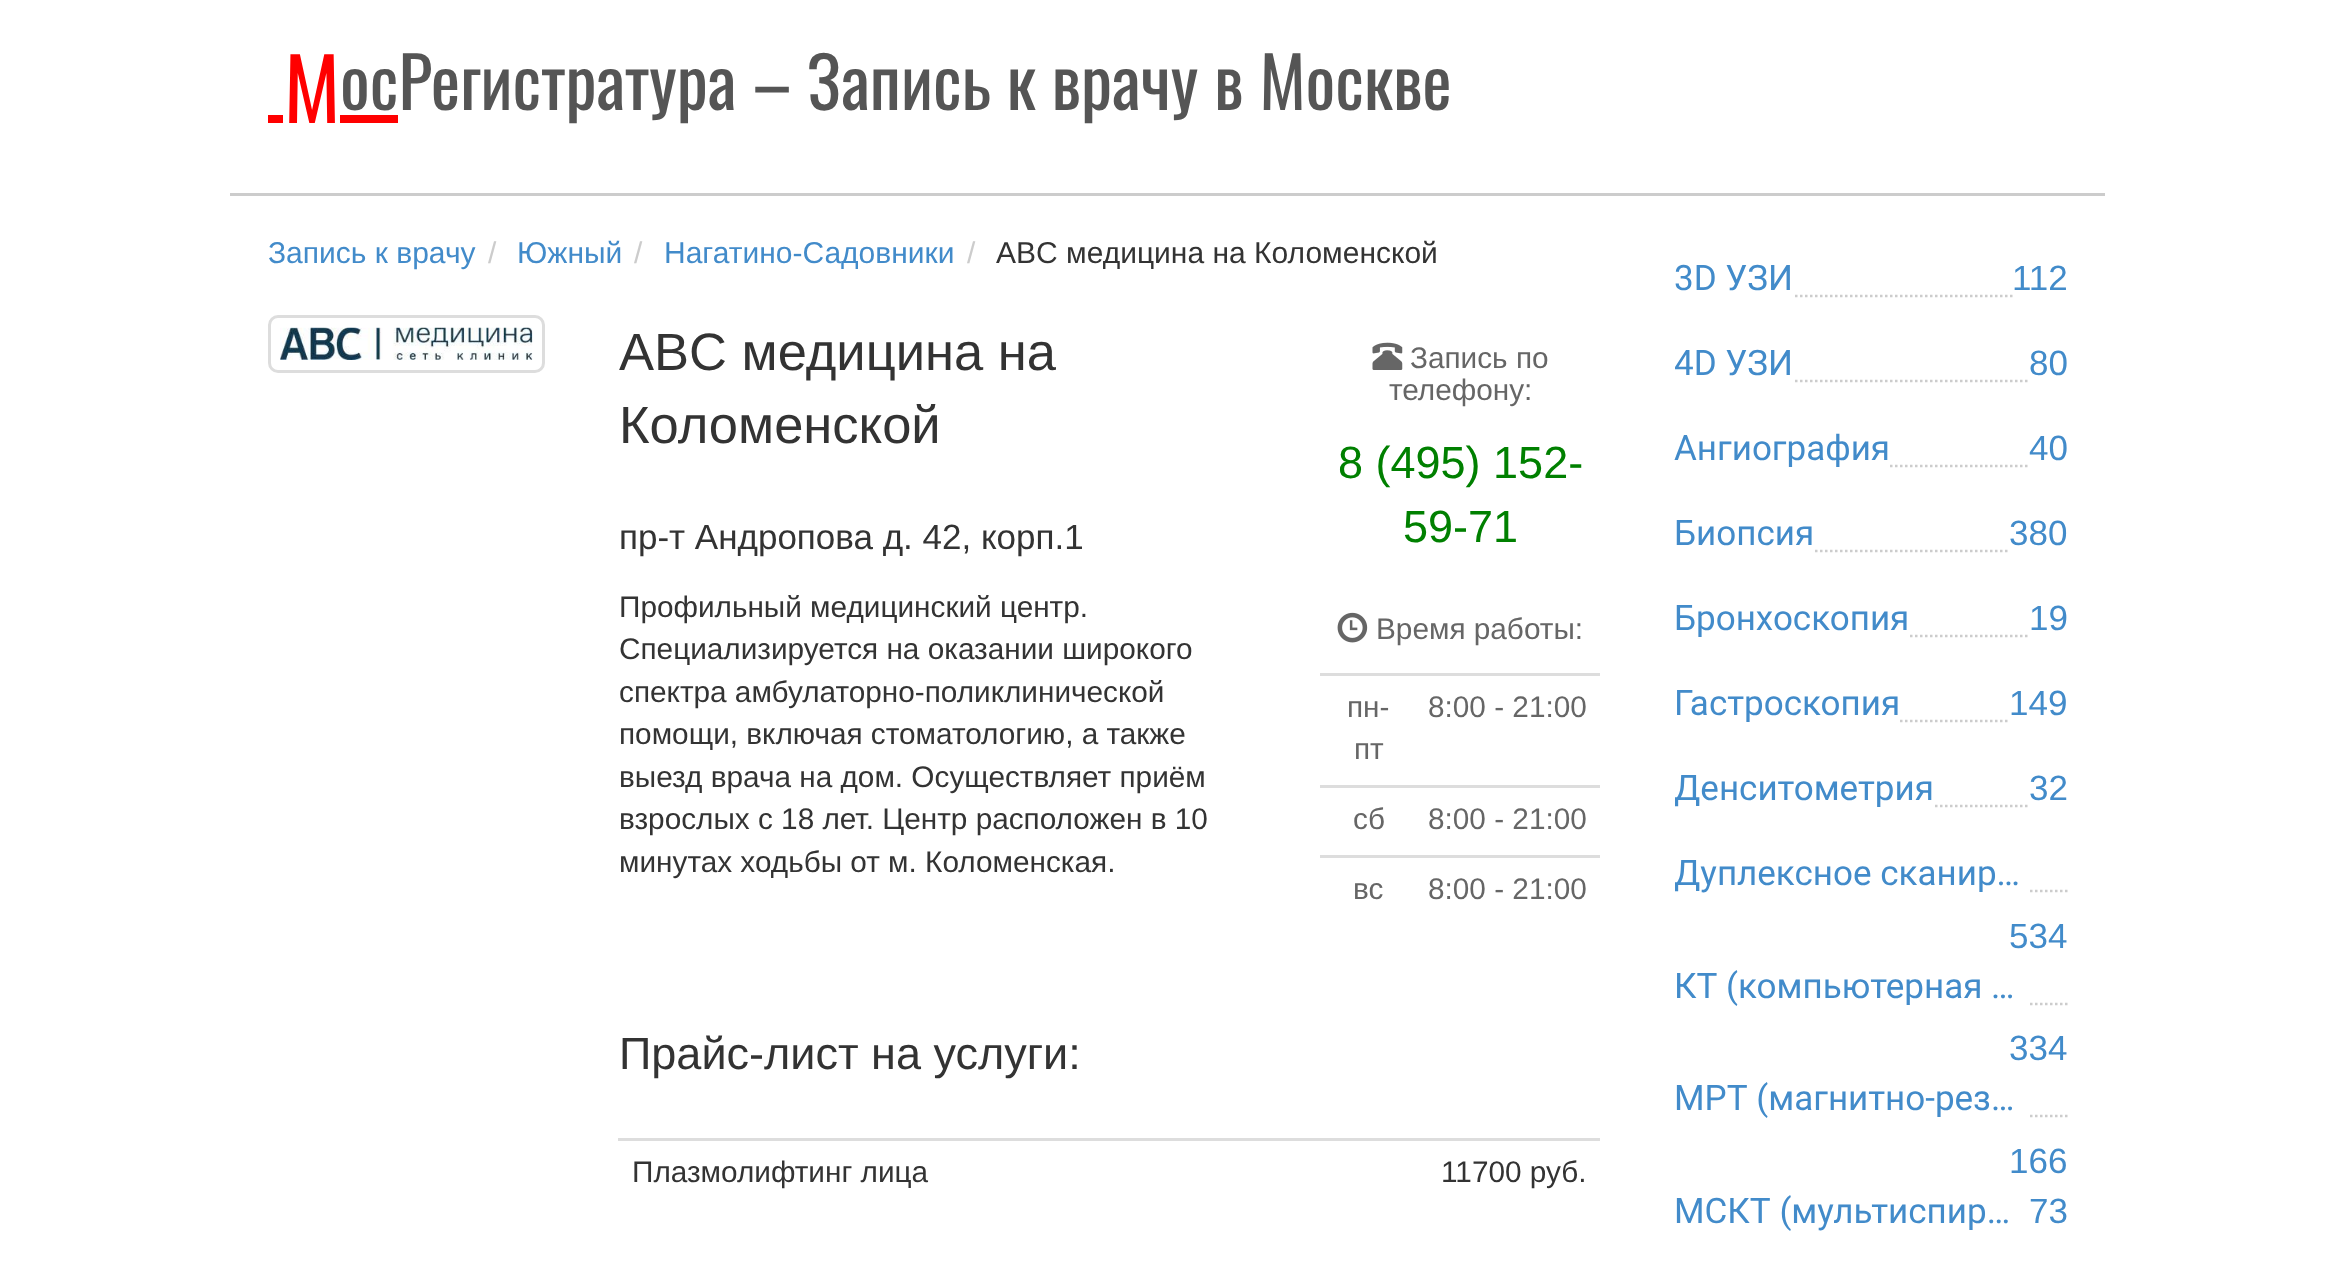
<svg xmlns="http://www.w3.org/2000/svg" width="2333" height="1285">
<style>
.a{font:85px Oswald;fill:#f00}
.b{font:70px Oswald;fill:#555}
.c{font:30px Liberation Sans;fill:#428bca}
.d{font:30px Liberation Sans;fill:#ccc}
.e{font:30px Liberation Sans;fill:#333}
.f{font:52.5px Liberation Sans;fill:#333}
.g{font:35px Liberation Sans;fill:#333}
.h{font:29.75px Liberation Sans;fill:#333}
.i{font:29.75px Liberation Sans;fill:#666}
.j{font:45px Liberation Sans;fill:#008000}
.k{font:45px Liberation Sans;fill:#333}
.l{font:35px Roboto;fill:#428bca}
.m{font:35px Liberation Sans;fill:#428bca}
</style>
<defs>
<clipPath id="clip1"><path d="M1675 338h118v50H1675z"/></clipPath>
<clipPath id="clip2"><path d="M1675 763h258v50H1675z"/></clipPath>
<clipPath id="clip3"><path d="M1675 848h353v50H1675z"/></clipPath>
</defs>
<rect width="100%" height="100%" fill="#fff"/>
<path fill="#f00" d="M268 115h130v8H268z"/>
<path fill="#fff" d="M283 115h57v8H283z"/>
<path fill="#ccc" d="M230 193h1875v3H230z"/>
<rect fill="none" stroke="#ddd" stroke-width="3" x="269.5" y="316.5" width="274" height="55" rx="8.5"/>
<image href="1.png" x="280" y="327" width="253" height="33"/>
<image href="2.png" x="1372" y="342" width="31" height="28"/>
<image href="3.png" x="1337" y="612" width="31" height="31"/>
<path fill="#ddd" d="M1320 673h280v3H1320z"/>
<path fill="#ddd" d="M1320 785h280v3H1320z"/>
<path fill="#ddd" d="M1320 855h280v3H1320z"/>
<path fill="#ddd" d="M618 1138h982v3H618z"/>
<path fill="none" stroke="#ccc" stroke-width="2.5" stroke-dasharray="2.5 2.5" d="M1675 296h392.5"/>
<path fill="#fff" d="M1675 294h118v4H1675z"/>
<path fill="#fff" d="M2015 294h53v4H2015z"/>
<path fill="none" stroke="#ccc" stroke-width="2.5" stroke-dasharray="2.5 2.5" d="M1675 381h392.5"/>
<path fill="#fff" d="M1675 379h118v4H1675z"/>
<path fill="#fff" d="M2030 379h38v4H2030z"/>
<path fill="none" stroke="#ccc" stroke-width="2.5" stroke-dasharray="2.5 2.5" d="M1675 466h392.5"/>
<path fill="#fff" d="M1675 464h213v4H1675z"/>
<path fill="#fff" d="M2030 464h38v4H2030z"/>
<path fill="none" stroke="#ccc" stroke-width="2.5" stroke-dasharray="2.5 2.5" d="M1675 551h392.5"/>
<path fill="#fff" d="M1675 549h138v4H1675z"/>
<path fill="#fff" d="M2010 549h58v4H2010z"/>
<path fill="none" stroke="#ccc" stroke-width="2.5" stroke-dasharray="2.5 2.5" d="M1675 636h392.5"/>
<path fill="#fff" d="M1675 634h233v4H1675z"/>
<path fill="#fff" d="M2030 634h38v4H2030z"/>
<path fill="none" stroke="#ccc" stroke-width="2.5" stroke-dasharray="2.5 2.5" d="M1675 721h392.5"/>
<path fill="#fff" d="M1675 719h223v4H1675z"/>
<path fill="#fff" d="M2010 719h58v4H2010z"/>
<path fill="none" stroke="#ccc" stroke-width="2.5" stroke-dasharray="2.5 2.5" d="M1675 806h392.5"/>
<path fill="#fff" d="M1675 804h258v4H1675z"/>
<path fill="#fff" d="M2030 804h38v4H2030z"/>
<path fill="none" stroke="#ccc" stroke-width="2.5" stroke-dasharray="2.5 2.5" d="M1675 891h392.5"/>
<path fill="#fff" d="M1675 889h353v4H1675z"/>
<path fill="none" stroke="#ccc" stroke-width="2.5" stroke-dasharray="2.5 2.5" d="M1675 1004h392.5"/>
<path fill="#fff" d="M1675 1002h353v4H1675z"/>
<path fill="none" stroke="#ccc" stroke-width="2.5" stroke-dasharray="2.5 2.5" d="M1675 1116h392.5"/>
<path fill="#fff" d="M1675 1114h353v4H1675z"/>
<text class="a" x="284" y="123">М</text>
<text class="b" x="340" y="110">осРегистратура – Запись к врачу в Москве</text>
<text class="c" x="268" y="263">Запись к врачу</text>
<text class="d" x="488" y="263">/</text>
<text class="c" x="517" y="263">Южный</text>
<text class="d" x="634" y="263">/</text>
<text class="c" x="664" y="263">Нагатино-Садовники</text>
<text class="d" x="967" y="263">/</text>
<text class="e" x="996" y="263">ABC медицина на Коломенской</text>
<text class="f" x="619" y="370">ABC медицина на</text>
<text class="f" x="619" y="443">Коломенской</text>
<text class="g" x="619" y="549">пр-т Андропова д. 42, корп.1</text>
<text class="h" x="619" y="617">Профильный медицинский центр.</text>
<text class="h" x="619" y="659">Специализируется на оказании широкого</text>
<text class="h" x="619" y="702">спектра амбулаторно-поликлинической</text>
<text class="h" x="619" y="744">помощи, включая стоматологию, а также</text>
<text class="h" x="619" y="787">выезд врача на дом. Осуществляет приём</text>
<text class="h" x="619" y="829">взрослых с 18 лет. Центр расположен в 10</text>
<text class="h" x="619" y="872">минутах ходьбы от м. Коломенская.</text>
<text class="i" x="1410" y="368">Запись по</text>
<text class="i" x="1389" y="400">телефону:</text>
<text class="j" x="1338" y="478">8 (495) 152-</text>
<text class="j" x="1403" y="542">59-71</text>
<text class="i" x="1376" y="639">Время работы:</text>
<text class="i" x="1347" y="717">пн-</text>
<text class="i" x="1354" y="759">пт</text>
<text class="i" x="1428" y="717">8:00 - 21:00</text>
<text class="i" x="1353" y="829">сб</text>
<text class="i" x="1428" y="829">8:00 - 21:00</text>
<text class="i" x="1353" y="899">вс</text>
<text class="i" x="1428" y="899">8:00 - 21:00</text>
<text class="k" x="619" y="1069">Прайс-лист на услуги:</text>
<text class="h" x="632" y="1182">Плазмолифтинг лица</text>
<text class="h" x="1441" y="1182">11700 руб.</text>
<text class="l" x="1674" y="290">3D УЗИ</text>
<text class="m" x="2012" y="290">112</text>
<g clip-path="url(#clip1)">
<text class="l" x="1674" y="375">4D УЗИ</text>
</g>
<text class="m" x="2029" y="375">80</text>
<text class="l" x="1674" y="460">Ангиография</text>
<text class="m" x="2029" y="460">40</text>
<text class="l" x="1674" y="545">Биопсия</text>
<text class="m" x="2009" y="545">380</text>
<text class="l" x="1674" y="630">Бронхоскопия</text>
<text class="m" x="2029" y="630">19</text>
<text class="l" x="1674" y="715">Гастроскопия</text>
<text class="m" x="2009" y="715">149</text>
<g clip-path="url(#clip2)">
<text class="l" x="1674" y="800">Денситометрия</text>
</g>
<text class="m" x="2029" y="800">32</text>
<g clip-path="url(#clip3)">
<text class="l" x="1674" y="885">Дуплексное сканир…</text>
</g>
<text class="m" x="2009" y="948">534</text>
<text class="l" x="1674" y="998">КТ (компьютерная …</text>
<text class="m" x="2009" y="1060">334</text>
<text class="l" x="1674" y="1110">МРТ (магнитно-рез…</text>
<text class="m" x="2009" y="1173">166</text>
<text class="l" x="1674" y="1223">МСКТ (мультиспир…</text>
<text class="m" x="2029" y="1223">73</text>
</svg>
